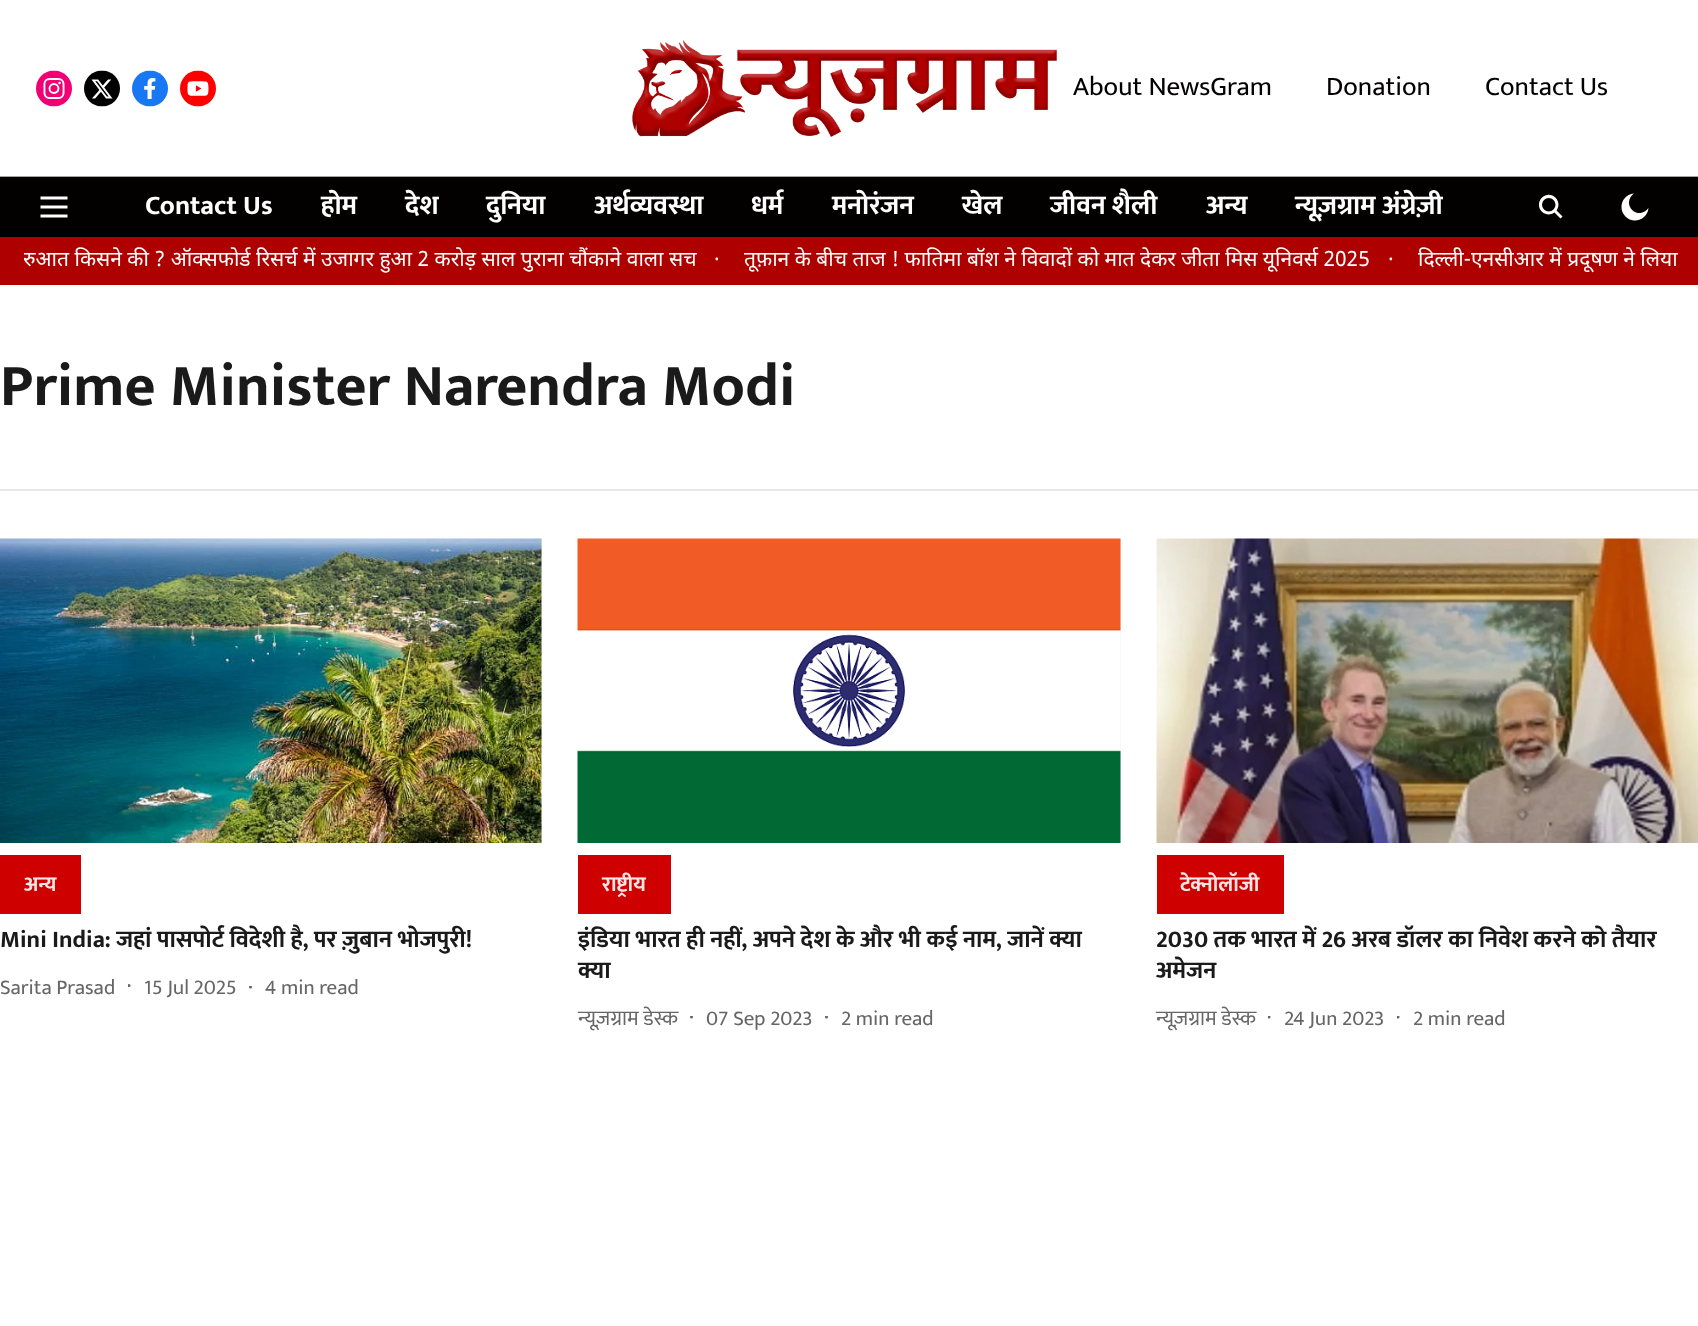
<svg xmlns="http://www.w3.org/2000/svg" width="1698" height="1326">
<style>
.a{font:27px Mukta;fill:#030000}
.b{font:bold 27px Mukta;fill:#fff}
.c{font:21px Noto Sans Devanagari;fill:#fff}
.d{font:bold 60px Mukta;fill:#1a1a1a}
.e{font:bold 21px Mukta;fill:#fae6e6}
.f{font:bold 24px Mukta;fill:#1a1a1a}
.g{font:21px Mukta;fill:#666}
</style>
<defs>
<clipPath id="clip1"><path d="M128 984h5v5H128z"/></clipPath>
<clipPath id="clip2"><path d="M249 986h5v5H249z"/></clipPath>
<clipPath id="clip3"><path d="M690 1016h5v5H690z"/></clipPath>
<clipPath id="clip4"><path d="M825 1016h5v5H825z"/></clipPath>
<clipPath id="clip5"><path d="M1268 1016h5v5H1268z"/></clipPath>
<clipPath id="clip6"><path d="M1397 1016h5v5H1397z"/></clipPath>
<clipPath id="clip7"><path d="M24 246h1650v32H24z"/></clipPath>
</defs>
<rect width="100%" height="100%" fill="#fff"/>
<path fill="#a4a4a4" d="M0 176h1698v1H0z"/>
<image href="1.png" x="36" y="70" width="36" height="37"/>
<image href="2.png" x="84" y="70" width="36" height="37"/>
<image href="3.png" x="132" y="70" width="36" height="37"/>
<image href="4.png" x="180" y="70" width="36" height="37"/>
<image href="5.png" x="632" y="40" width="425" height="97"/>
<path fill="#030000" d="M0 177h1698v60H0z"/>
<image href="6.png" x="40" y="196" width="28" height="22"/>
<image href="7.png" x="1539" y="194" width="24" height="25"/>
<image href="8.png" x="1621" y="193" width="28" height="28"/>
<path fill="#af0000" d="M0 237h1698v48H0z"/>
<path fill="#e6e6e6" d="M0 489h1698v2H0z"/>
<path fill="#f0f0f0" d="M541 539h1v304H541z"/>
<image href="9.png" x="0" y="538" width="542" height="305"/>
<path fill="#ce0000" d="M0 855h81v59H0z"/>
<g clip-path="url(#clip1)">
<circle fill="#666" cx="129" cy="985.5" r="1.5"/>
</g>
<g clip-path="url(#clip2)">
<circle fill="#666" cx="250.5" cy="987" r="1.5"/>
</g>
<path fill="#f0f0f0" d="M1120 539h1v304H1120z"/>
<image href="10.png" x="577" y="538" width="544" height="305"/>
<path fill="#ce0000" d="M578 855h93v59H578z"/>
<g clip-path="url(#clip3)">
<circle fill="#666" cx="691.5" cy="1017" r="1.5"/>
</g>
<g clip-path="url(#clip4)">
<circle fill="#666" cx="826.5" cy="1017" r="1.5"/>
</g>
<image href="11.png" x="1156" y="538" width="542" height="305"/>
<path fill="#ce0000" d="M1157 855h127v59H1157z"/>
<g clip-path="url(#clip5)">
<circle fill="#666" cx="1269" cy="1017" r="1.5"/>
</g>
<g clip-path="url(#clip6)">
<circle fill="#666" cx="1398" cy="1017" r="1.5"/>
</g>
<text class="a" x="1073" y="95">About NewsGram</text>
<text class="a" x="1326" y="95">Donation</text>
<text class="a" x="1485" y="95">Contact Us</text>
<text class="b" x="145" y="214">Contact Us</text>
<text class="b" x="321" y="214">होम</text>
<text class="b" x="405" y="214">देश</text>
<text class="b" x="486" y="214">दुनिया</text>
<text class="b" x="594" y="214">अर्थव्यवस्था</text>
<text class="b" x="751" y="214">धर्म</text>
<text class="b" x="832" y="214">मनोरंजन</text>
<text class="b" x="962" y="214">खेल</text>
<text class="b" x="1050" y="214">जीवन शैली</text>
<text class="b" x="1206" y="214">अन्य</text>
<text class="b" x="1295" y="214">न्यूज़ग्राम अंग्रेज़ी</text>
<g clip-path="url(#clip7)">
<text class="c" x="23" y="266">रुआत किसने की ? ऑक्सफोर्ड रिसर्च में उजागर हुआ 2 करोड़ साल पुराना चौंकाने वाला सच</text>
</g>
<text class="c" x="714" y="260">.</text>
<text class="c" x="744" y="266">तूफ़ान के बीच ताज ! फातिमा बॉश ने विवादों को मात देकर जीता मिस यूनिवर्स 2025</text>
<text class="c" x="1388" y="260">.</text>
<text class="c" x="1418" y="266">दिल्ली-एनसीआर में प्रदूषण ने लिया</text>
<text class="d" x="0" y="405">Prime Minister Narendra Modi</text>
<text class="e" x="24" y="891">अन्य</text>
<text class="f" x="0" y="947">Mini India: जहां पासपोर्ट विदेशी है, पर ज़ुबान भोजपुरी!</text>
<text class="g" x="0" y="994">Sarita Prasad</text>
<text class="g" x="144" y="994">15 Jul 2025</text>
<text class="g" x="265" y="994">4 min read</text>
<text class="e" x="602" y="891">राष्ट्रीय</text>
<text class="f" x="578" y="947">इंडिया भारत ही नहीं, अपने देश के और भी कई नाम, जानें क्या</text>
<text class="f" x="578" y="978">क्या</text>
<text class="g" x="578" y="1025">न्यूज़ग्राम डेस्क</text>
<text class="g" x="706" y="1025">07 Sep 2023</text>
<text class="g" x="841" y="1025">2 min read</text>
<text class="e" x="1180" y="891">टेक्नोलॉजी</text>
<text class="f" x="1156" y="947">2030 तक भारत में 26 अरब डॉलर का निवेश करने को तैयार</text>
<text class="f" x="1156" y="978">अमेजन</text>
<text class="g" x="1156" y="1025">न्यूज़ग्राम डेस्क</text>
<text class="g" x="1284" y="1025">24 Jun 2023</text>
<text class="g" x="1413" y="1025">2 min read</text>
</svg>
